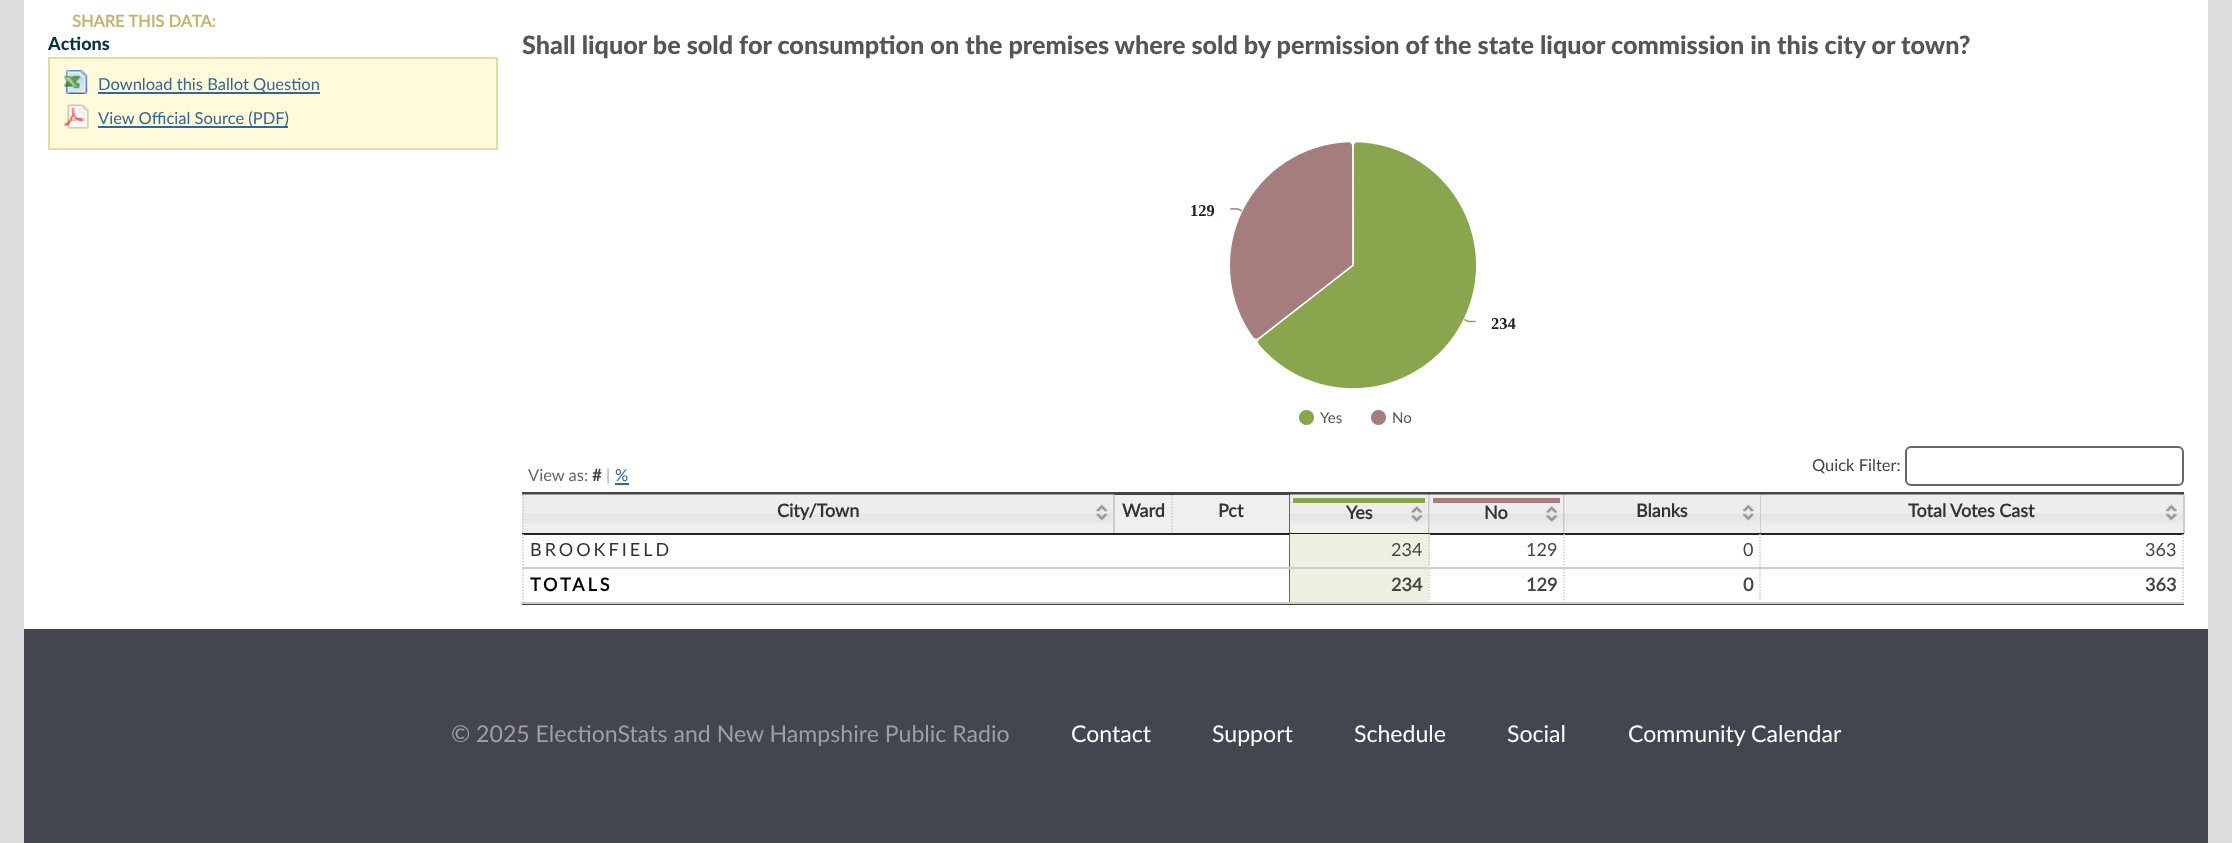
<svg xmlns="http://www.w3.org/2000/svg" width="2232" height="843">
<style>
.a{font:bold 16.5px Lato;fill:#c6b16b}
.b{font:900 18px Lato;fill:#06353c}
.c{font:16.5px Lato;fill:#369}
.d{font:900 25.2px Lato;fill:#555}
.e{font:bold 16.5px Liberation Serif;fill:#222}
.f{font:15px Lato;fill:#555}
.g{font:16.5px Lato;fill:#444}
.h{font:16.5px Lato;fill:#666}
.i{font:bold 16.5px Lato;fill:#444}
.j{font:16.5px Lato;fill:#aaa}
.k{font:bold 18px Lato;fill:#333}
.l{font:18px Lato;letter-spacing:3px;fill:#333}
.m{font:18px Lato;fill:#444}
.n{font:bold 18px Lato;letter-spacing:3px;fill:#000}
.o{font:bold 18px Lato;fill:#444}
.p{font:23.1px Lato;fill:#9f9f9f}
.q{font:23.1px Lato;fill:#fff}
</style>
<rect width="100%" height="100%" fill="#ddd"/>
<path fill="#fff" d="M24 0h2184v629H24z"/>
<path fill="#fffada" stroke="#dfe0a0" stroke-width="2" d="M49 58h448v91H49z"/>
<image href="1.png" x="64" y="70" width="24" height="24"/>
<path fill="#369" d="M98 92h222v2H98z"/>
<image href="2.png" x="64" y="104" width="25" height="25"/>
<path fill="#369" d="M98 126h190v2H98z"/>
<image href="3.png" x="1230" y="142" width="246" height="283"/>
<rect fill="none" stroke="#666" stroke-width="2" x="1906" y="447" width="277" height="38" rx="5"/>
<path fill="#369" d="M615 483h14v2H615z"/>
<path fill="#444" d="M522 492h1662v3H522z"/>
<path fill="#444" d="M522 604h1662v1H522z"/>
<path fill="#efefef" d="M522 524h591v9H522z"/>
<image href="4.png" x="522" y="494" width="593" height="30"/>
<path fill="#ccc" d="M1113 495h2v39H1113z"/>
<path fill="#222" d="M522 533h651v2H522z"/>
<path fill="none" stroke="#ccc" stroke-width="1.5" stroke-dasharray="1.5 1.5" d="M523 495v39"/>
<image href="5.png" x="1096" y="504" width="12" height="17"/>
<path fill="#efefef" d="M1115 495h174v38H1115z"/>
<path fill="none" stroke="#ccc" stroke-width="1.5" stroke-dasharray="1.5 1.5" d="M1172 495v39"/>
<path fill="#666" d="M1289 495h1v39H1289z"/>
<path fill="#222" d="M1173 533h117v2H1173z"/>
<path fill="#efefef" d="M1290 524h138v9H1290z"/>
<image href="6.png" x="1290" y="494" width="140" height="30"/>
<path fill="#ccc" d="M1428 495h2v39H1428z"/>
<path fill="#222" d="M1290 533h140v1H1290z"/>
<path fill="#89a54e" d="M1293 498h132v5H1293z"/>
<image href="7.png" x="1411" y="506" width="12" height="16"/>
<image href="8.png" x="1429" y="494" width="136" height="40"/>
<path fill="#ccc" d="M1563 495h2v39H1563z"/>
<path fill="#222" d="M1430 533h135v2H1430z"/>
<path fill="#a47d7c" d="M1433 498h127v5H1433z"/>
<image href="7.png" x="1546" y="506" width="12" height="16"/>
<image href="9.png" x="1564" y="494" width="197" height="40"/>
<path fill="#ccc" d="M1760 495h1v39H1760z"/>
<path fill="#222" d="M1565 533h196v2H1565z"/>
<image href="10.png" x="1742" y="504" width="12" height="17"/>
<path fill="#efefef" d="M1761 524h422v9H1761z"/>
<image href="11.png" x="1761" y="494" width="423" height="30"/>
<path fill="#ccc" d="M2183 495h2v39H2183z"/>
<path fill="#222" d="M1761 533h423v2H1761z"/>
<image href="12.png" x="2165" y="504" width="12" height="17"/>
<path fill="#666" d="M1289 534h1v69H1289z"/>
<path fill="#ccc" d="M522 567h768v2H522z"/>
<path fill="none" stroke="#ccc" stroke-width="1.5" stroke-dasharray="1.5 1.5" d="M523 534v34.5"/>
<path fill="#ecf1e2" d="M1290 534h140v33H1290z"/>
<path fill="none" stroke="#ccc" stroke-width="1.5" stroke-dasharray="1.5 1.5" d="M1429 534v34.5"/>
<path fill="#ccc" d="M1290 567h140v2H1290z"/>
<path fill="none" stroke="#ccc" stroke-width="1.5" stroke-dasharray="1.5 1.5" d="M1564 534v34.5"/>
<path fill="#ccc" d="M1430 567h135v2H1430z"/>
<path fill="none" stroke="#ccc" stroke-width="1.5" stroke-dasharray="1.5 1.5" d="M1760 534v34.5"/>
<path fill="#ccc" d="M1565 567h196v2H1565z"/>
<path fill="none" stroke="#ccc" stroke-width="1.5" stroke-dasharray="1.5 1.5" d="M2183 534v34.5"/>
<path fill="#ccc" d="M1761 567h423v2H1761z"/>
<path fill="#ccc" d="M522 602h768v2H522z"/>
<path fill="none" stroke="#ccc" stroke-width="1.5" stroke-dasharray="1.5 1.5" d="M523 568.5v34.5"/>
<path fill="none" stroke="#ccc" stroke-width="1.5" stroke-dasharray="1.5 1.5" d="M1429 568.5v34.5"/>
<path fill="#ccc" d="M1290 602h140v2H1290z"/>
<path fill="#ecf1e2" d="M1290 569h138v33H1290z"/>
<path fill="none" stroke="#ccc" stroke-width="1.5" stroke-dasharray="1.5 1.5" d="M1564 568.5v34.5"/>
<path fill="#ccc" d="M1430 602h135v2H1430z"/>
<path fill="none" stroke="#ccc" stroke-width="1.5" stroke-dasharray="1.5 1.5" d="M1760 568.5v34.5"/>
<path fill="#ccc" d="M1565 602h196v2H1565z"/>
<path fill="none" stroke="#ccc" stroke-width="1.5" stroke-dasharray="1.5 1.5" d="M2183 568.5v34.5"/>
<path fill="#ccc" d="M1761 602h423v2H1761z"/>
<path fill="#43464f" d="M24 629h2184v214H24z"/>
<text class="a" x="72" y="27">SHARE THIS DATA:</text>
<text class="b" x="48" y="50">Actions</text>
<text class="c" x="98" y="90">Download this Ballot Question</text>
<text class="c" x="98" y="124">View Official Source (PDF)</text>
<text class="d" x="522" y="54">Shall liquor be sold for consumption on the premises where sold by permission of the state liquor commission in this city or town?</text>
<text class="e" x="1190" y="216">129</text>
<text class="e" x="1491" y="329">234</text>
<text class="f" x="1320" y="423">Yes</text>
<text class="f" x="1392" y="423">No</text>
<text class="g" x="1812" y="471">Quick Filter:</text>
<text class="h" x="528" y="481">View as:</text>
<text class="i" x="592" y="481">#</text>
<text class="j" x="606" y="481">|</text>
<text class="c" x="615" y="481">%</text>
<text class="k" x="777" y="517">City/Town</text>
<text class="k" x="1122" y="517">Ward</text>
<text class="k" x="1218" y="517">Pct</text>
<text class="k" x="1346" y="519">Yes</text>
<text class="k" x="1484" y="519">No</text>
<text class="k" x="1636" y="517">Blanks</text>
<text class="k" x="1908" y="517">Total Votes Cast</text>
<text class="l" x="530" y="556">BROOKFIELD</text>
<text class="m" x="1391" y="556">234</text>
<text class="m" x="1526" y="556">129</text>
<text class="m" x="1743" y="556">0</text>
<text class="m" x="2145" y="556">363</text>
<text class="n" x="530" y="591">TOTALS</text>
<text class="o" x="1391" y="591">234</text>
<text class="o" x="1526" y="591">129</text>
<text class="o" x="1743" y="591">0</text>
<text class="o" x="2145" y="591">363</text>
<text class="p" x="451" y="742">© 2025 ElectionStats and New Hampshire Public Radio</text>
<text class="q" x="1071" y="742">Contact</text>
<text class="q" x="1212" y="742">Support</text>
<text class="q" x="1354" y="742">Schedule</text>
<text class="q" x="1507" y="742">Social</text>
<text class="q" x="1628" y="742">Community Calendar</text>
</svg>
